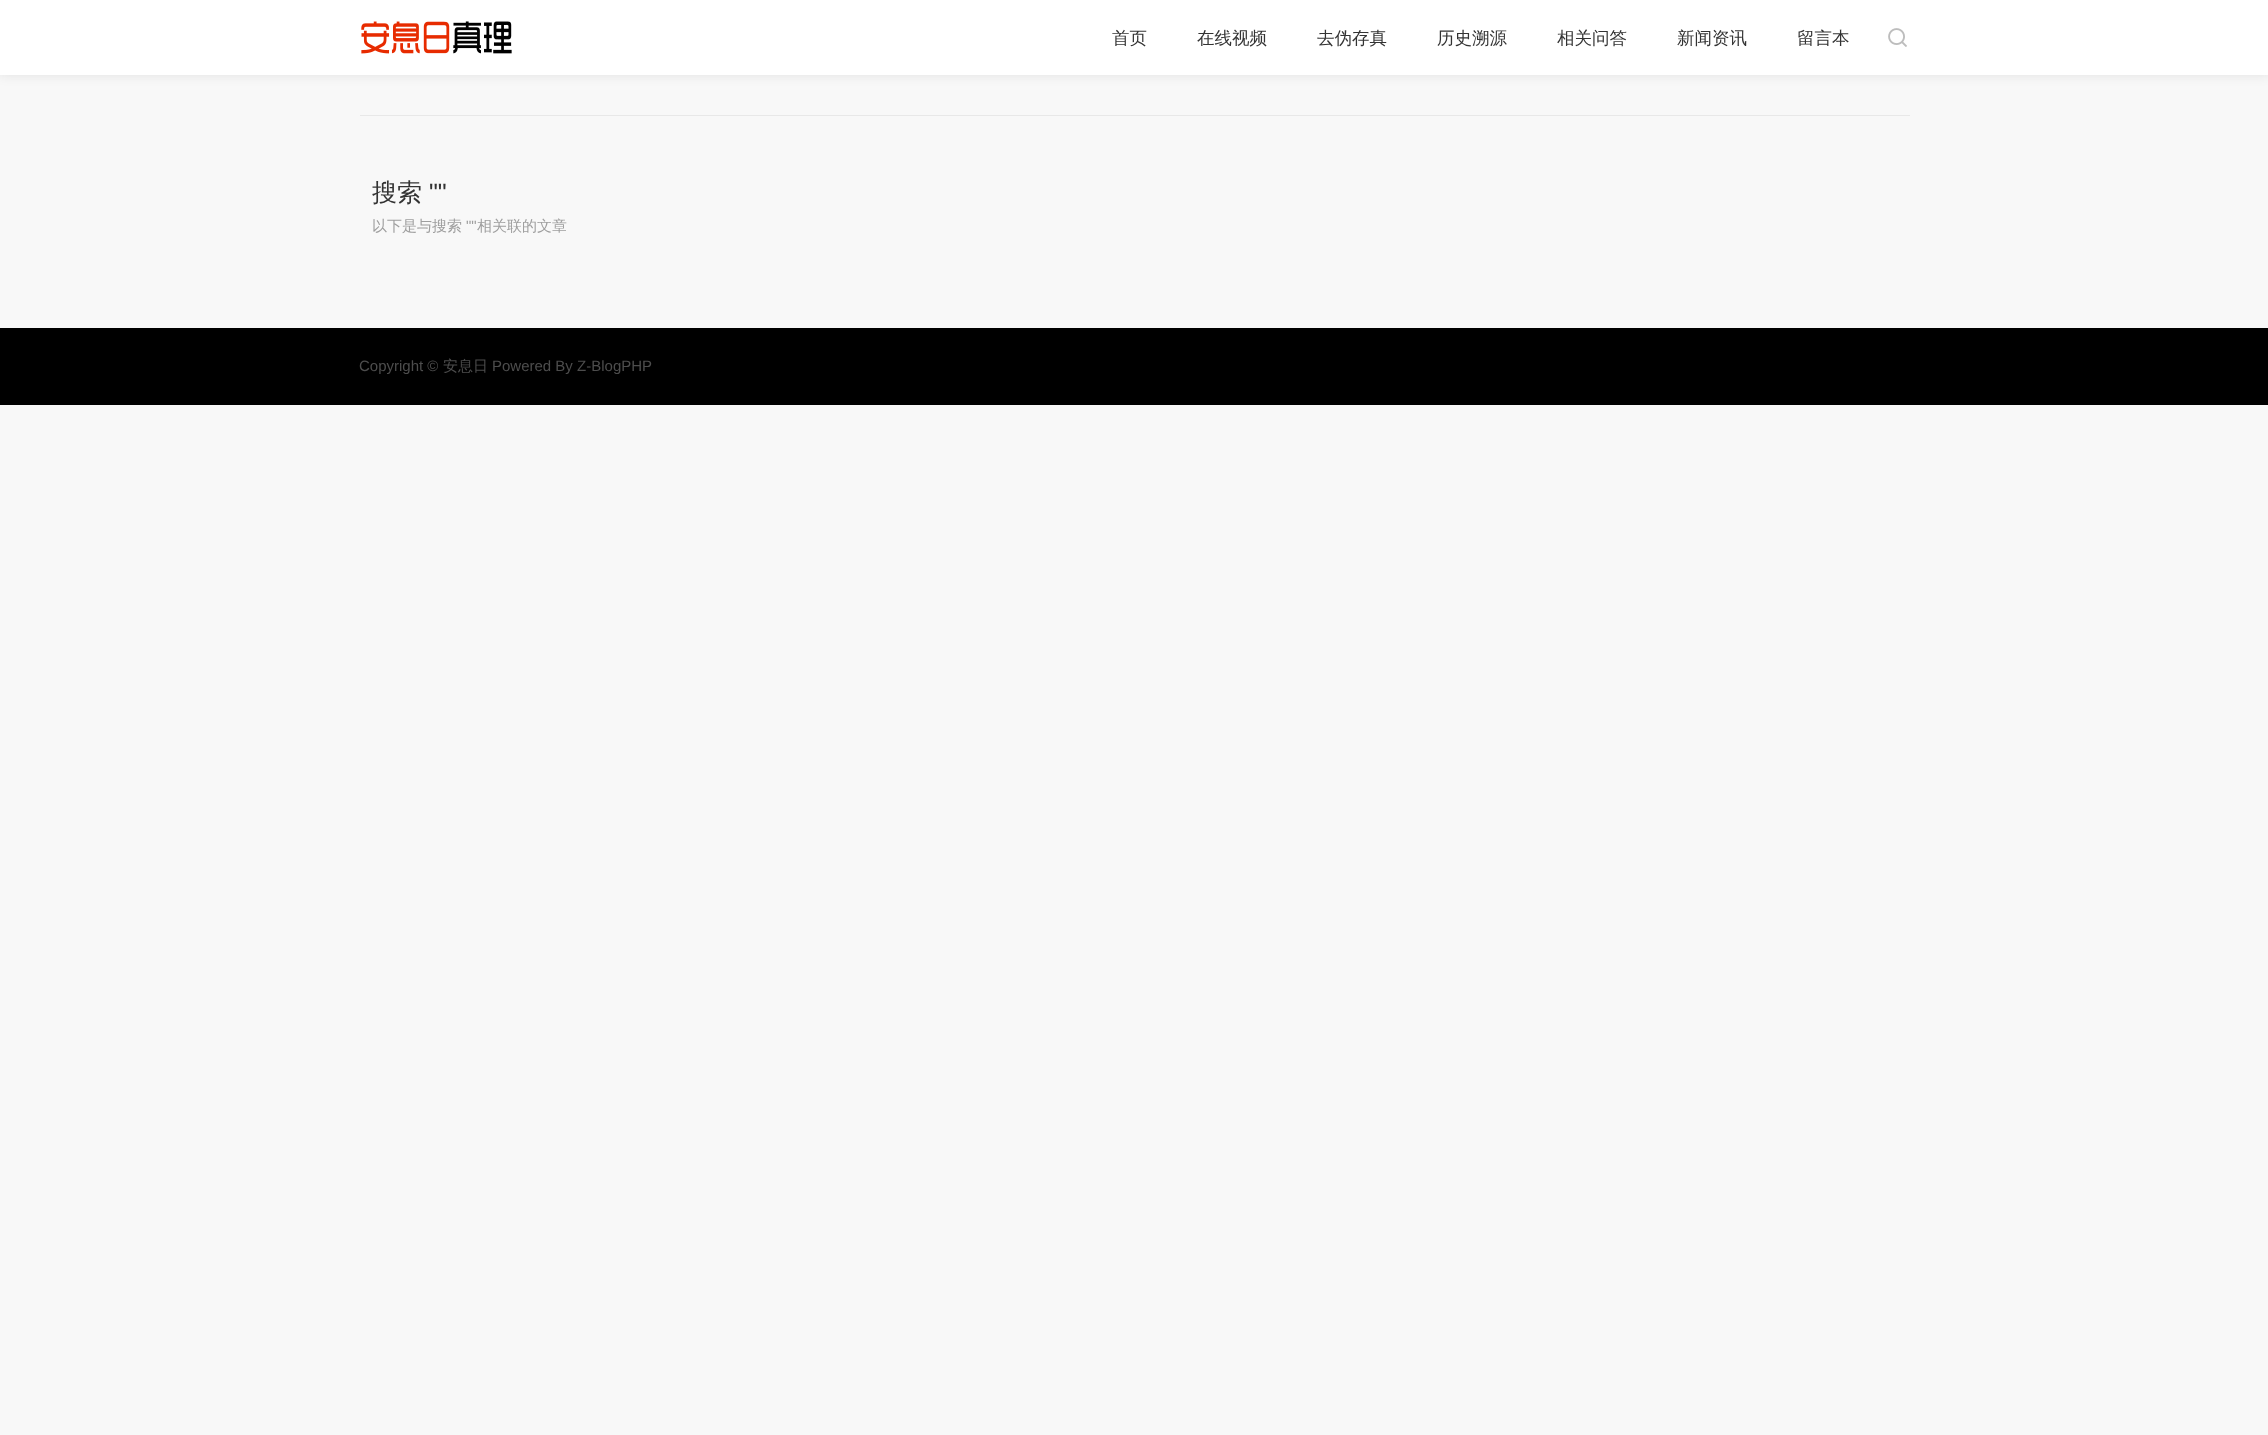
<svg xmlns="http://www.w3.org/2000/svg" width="2268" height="1435">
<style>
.a{font:500 17.5px WenQuanYi Zen Hei;fill:#333}
.b{font:500 25px WenQuanYi Zen Hei;fill:#333}
.c{font:25px Liberation Sans;fill:#333}
.d{font:500 15px WenQuanYi Zen Hei;fill:#9e9e9e}
.e{font:15px Liberation Sans;fill:#9e9e9e}
.f{font:15px Liberation Sans;fill:#4d4d4d}
.g{font:500 15px WenQuanYi Zen Hei;fill:#4d4d4d}
</style>
<rect width="100%" height="100%" fill="#f8f8f8"/>
<path fill="#1616161a" filter="blur(6px)" d="M0 0h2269v75H0z"/>
<path fill="#fff" d="M0 0h2268v75H0z"/>
<image href="1.png" x="361" y="21" width="151" height="33"/>
<image href="2.png" x="1888" y="28" width="19" height="19"/>
<path fill="#e8e8e8" d="M360 115h1550v1H360z"/>
<path fill="#000" d="M0 328h2268v77H0z"/>
<text class="a" x="1112" y="44">首页</text>
<text class="a" x="1197" y="44">在线视频</text>
<text class="a" x="1317" y="44">去伪存真</text>
<text class="a" x="1437" y="44">历史溯源</text>
<text class="a" x="1557" y="44">相关问答</text>
<text class="a" x="1677" y="44">新闻资讯</text>
<text class="a" x="1797" y="44">留言本</text>
<text class="b" x="372" y="201">搜索</text>
<text class="c" x="429" y="201">""</text>
<text class="d" x="372" y="231">以下是与搜索</text>
<text class="e" x="466" y="231">""</text>
<text class="d" x="477" y="231">相关联的文章</text>
<text class="f" x="359" y="371">Copyright ©</text>
<text class="g" x="443" y="371">安息日</text>
<text class="f" x="492" y="371">Powered By Z-BlogPHP</text>
</svg>
